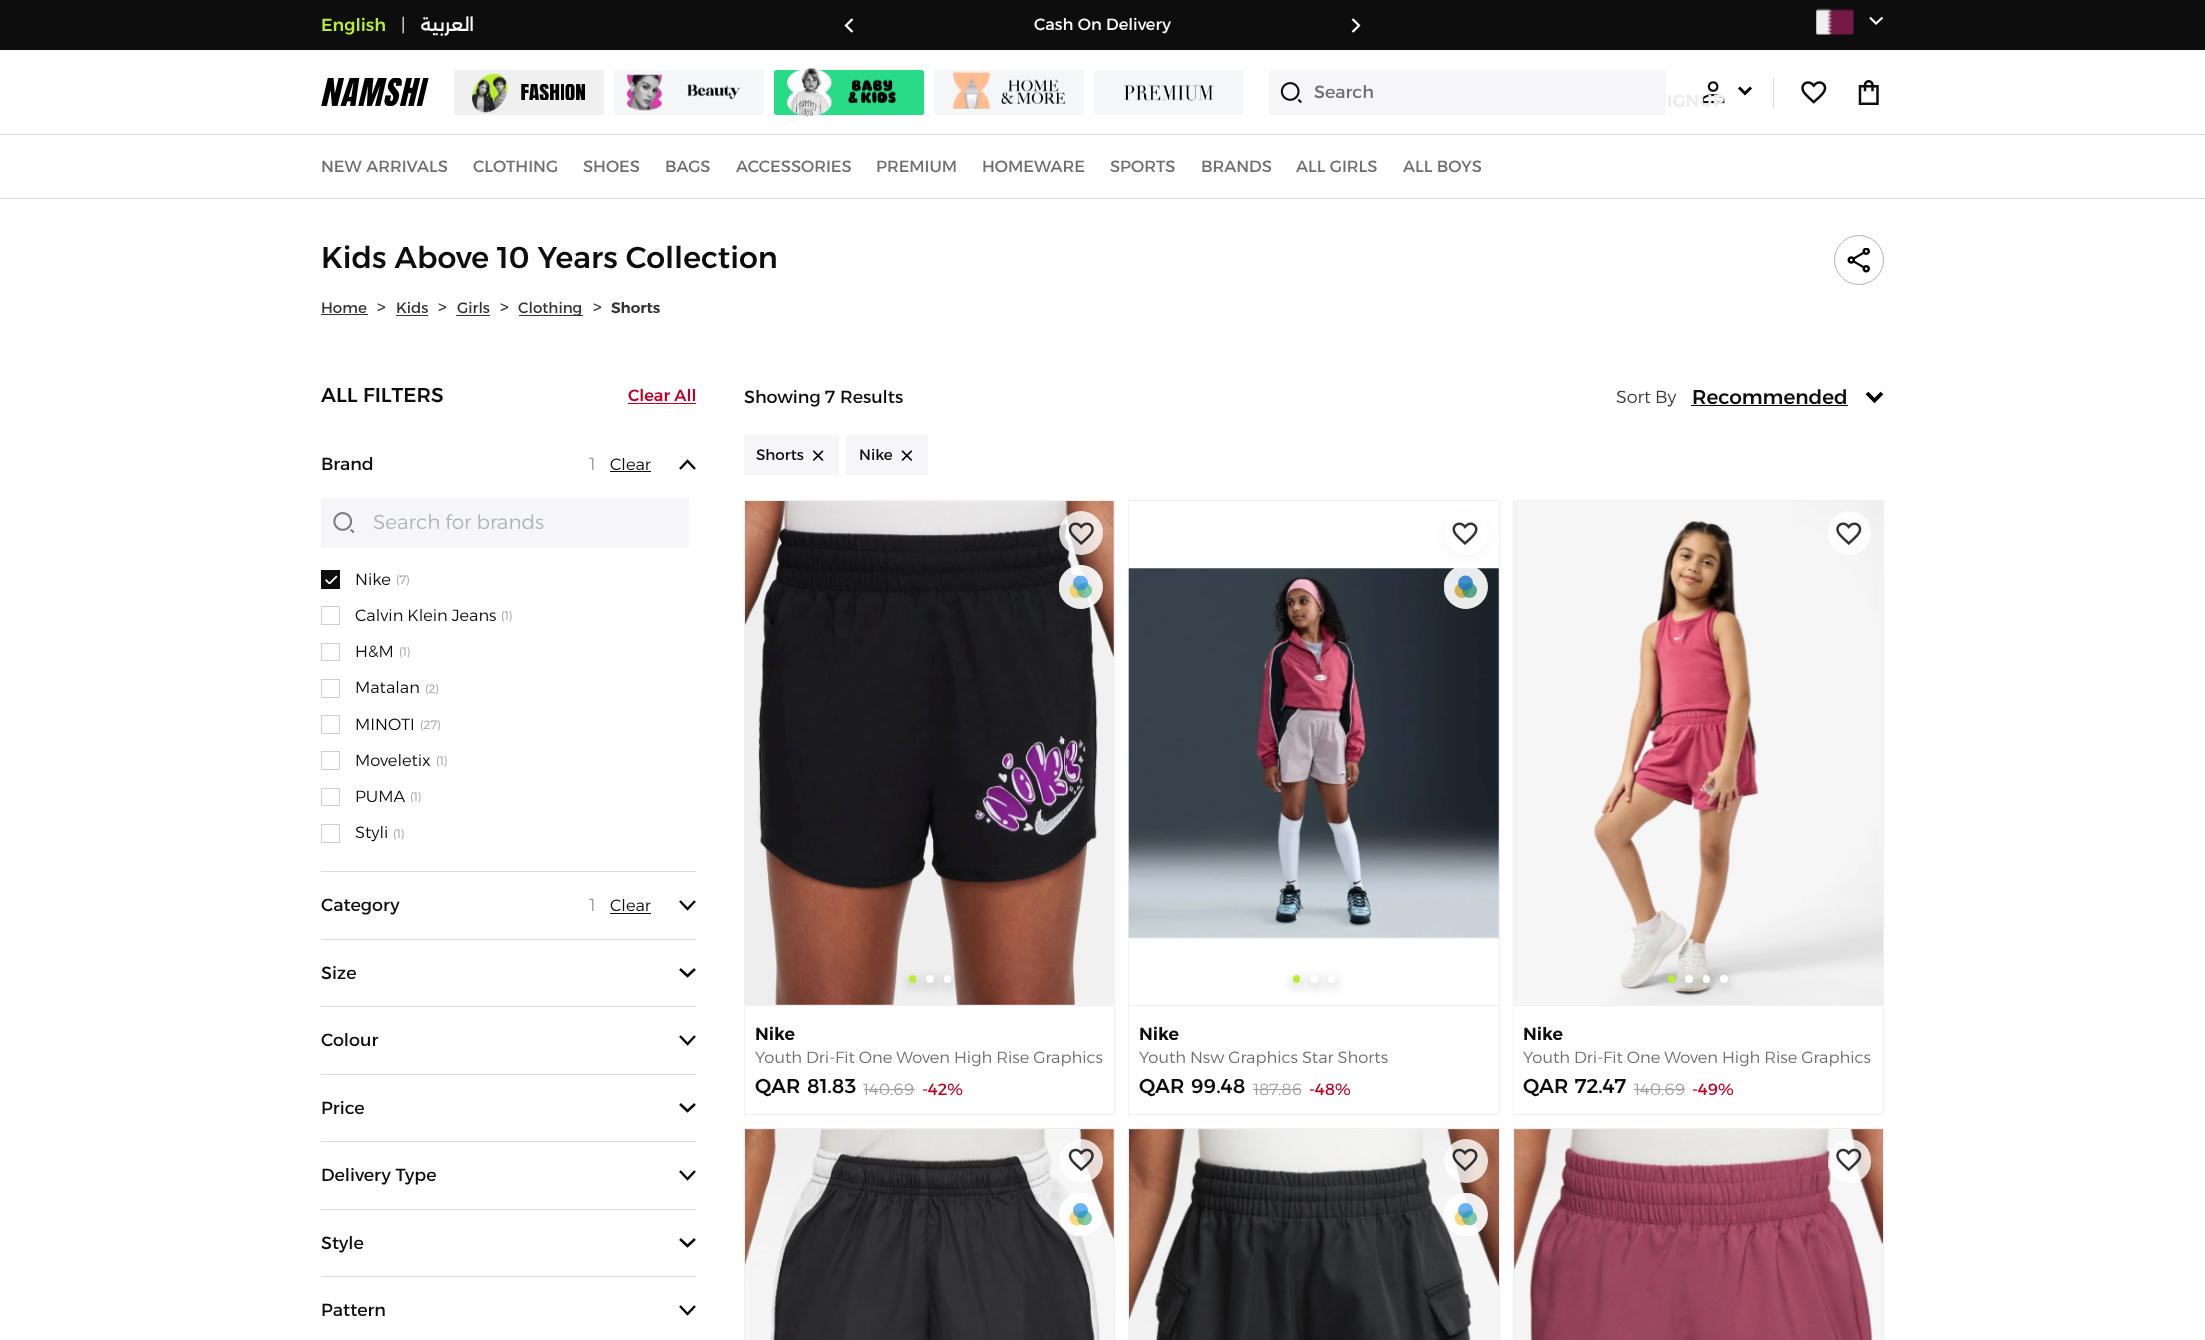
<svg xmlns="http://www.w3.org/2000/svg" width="2205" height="1340">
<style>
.a{font:500 17.5px Alexandria;fill:#b8ed31}
.b{font:300 17.5px Alexandria;fill:#fff}
.c{font:500 17.5px Alexandria;direction:rtl;fill:#fff}
.d{font:16.25px Alexandria;fill:#fff}
.e{font:17.5px Alexandria;fill:#6e6e6e}
.f{font:600 17.5px Alexandria;fill:#ededee}
.g{font:16.25px Alexandria;fill:#6e6e6e}
.h{font:500 30px Alexandria;fill:#0d0d0d}
.i{font:15px Alexandria;fill:#333}
.j{font:17.5px Alexandria;fill:#333}
.k{font:600 15px Alexandria;fill:#333}
.l{font:500 20px Alexandria;fill:#0d0d0d}
.m{font:500 16.25px Alexandria;fill:#bc0025}
.n{font:17.5px Alexandria;fill:#0d0d0d}
.o{font:300 17.5px Alexandria;fill:#9e9e9e}
.p{font:300 16.25px Alexandria;fill:#0d0d0d}
.q{font:300 20px Alexandria;fill:#b0b4b7}
.r{font:300 12px Alexandria;fill:#9e9e9e}
.s{font:300 17.5px Alexandria;fill:#3d3d3d}
.t{font:15px Alexandria;fill:#0d0d0d}
.u{font:600 17.5px Alexandria;fill:#0d0d0d}
.v{font:300 16.25px Alexandria;fill:#6e6e6e}
.w{font:300 16.25px Alexandria;fill:#9e9e9e}
.x{font:16.25px Alexandria;fill:#bc0025}
</style>
<defs>
<clipPath id="clip1"><path d="M1059 565h44v44H1059z"/></clipPath>
<clipPath id="clip2"><path d="M1444 565h44v44H1444z"/></clipPath>
<clipPath id="clip3"><path d="M1059 1193h44v43H1059z"/></clipPath>
<clipPath id="clip4"><path d="M1444 1193h44v43H1444z"/></clipPath>
</defs>
<rect width="100%" height="100%" fill="#fff"/>
<path fill="#0d0d0d" d="M0 0h2205v50H0z"/>
<path fill="none" stroke="#fff" stroke-width="2.2" d="M852.5 32l-6.5-6.5l6.5-6.5"/>
<path fill="none" stroke="#fff" stroke-width="2.2" d="M1352.5 32l6.5-6.5l-6.5-6.5"/>
<image href="1.png" x="1816" y="8" width="38" height="27"/>
<path fill="none" stroke="#fff" stroke-width="2.1" d="M1870 17.5l6 6l6.5-6"/>
<path fill="#dbdbdb" d="M0 134h2205v1H0z"/>
<image href="2.png" x="321" y="78" width="108" height="28"/>
<rect fill="#f0f0f0" x="454" y="70" width="150" height="45" rx="2.5"/>
<image href="3.png" x="472" y="72" width="36" height="41"/>
<image href="4.png" x="521" y="84" width="64" height="16"/>
<rect fill="#f5f6f8" x="614" y="70" width="150" height="45" rx="2.5"/>
<image href="5.png" x="627" y="74" width="35" height="37"/>
<image href="6.png" x="687" y="84" width="53" height="16"/>
<rect fill="#29da86" x="774" y="70" width="150" height="45" rx="2.5"/>
<image href="7.png" x="787" y="68" width="45" height="49"/>
<image href="8.png" x="848" y="79" width="48" height="25"/>
<rect fill="#f5f6f8" x="934" y="70" width="150" height="45" rx="2.5"/>
<image href="9.png" x="953" y="71" width="38" height="38"/>
<image href="10.png" x="1001" y="79" width="65" height="25"/>
<image href="11.png" x="1094" y="70" width="150" height="45"/>
<rect fill="#f6f6f8" x="1269" y="70" width="397" height="45" rx="2.5"/>
<image href="12.png" x="1280" y="82" width="22" height="22"/>
<path fill="#dbdbdb" d="M1773 78h1v30H1773z"/>
<image href="13.png" x="1801" y="81" width="26" height="23"/>
<image href="14.png" x="1858" y="80" width="21" height="25"/>
<image href="15.png" x="1701" y="81" width="24" height="23"/>
<path fill="none" stroke="#000" stroke-width="3" d="M1739 87.5l6 6l6-6"/>
<path fill="#dbdbdb" d="M0 198h2205v1H0z"/>
<path fill="#333" d="M321 314h47v1H321z"/>
<path fill="#333" d="M396 315h32v1H396z"/>
<path fill="#333" d="M456 315h34v1H456z"/>
<path fill="#333" d="M519 315h64v1H519z"/>
<circle fill="none" stroke="#b0b4b7" cx="1859" cy="260" r="24.5"/>
<image href="16.png" x="1847" y="248" width="23" height="25"/>
<path fill="#bc0025" d="M628 403h68v1H628z"/>
<path fill="#dbdbdb" d="M321 871h375v1H321z"/>
<path fill="none" stroke="#0c0c0c" stroke-width="2.5" d="M695 469l-7.5-8l-7.5 8"/>
<path fill="#0d0d0d" d="M610 471h41v1H610z"/>
<path fill="#f6f6f8" d="M321 498h368v50H321z"/>
<image href="17.png" x="333" y="512" width="22" height="21"/>
<path fill="#0d0d0d" d="M321 570h19v19H321z"/>
<image href="18.png" x="325" y="575" width="13" height="9"/>
<path fill="none" stroke="#cfcfcf" d="M321.5 606.5h18v18H321.5z"/>
<path fill="none" stroke="#cfcfcf" d="M321.5 643.5h18v17H321.5z"/>
<path fill="none" stroke="#cfcfcf" d="M321.5 679.5h18v18H321.5z"/>
<path fill="none" stroke="#cfcfcf" d="M321.5 715.5h18v18H321.5z"/>
<path fill="none" stroke="#cfcfcf" d="M321.5 751.5h18v18H321.5z"/>
<path fill="none" stroke="#cfcfcf" d="M321.5 788.5h18v17H321.5z"/>
<path fill="none" stroke="#cfcfcf" d="M321.5 824.5h18v18H321.5z"/>
<path fill="#dbdbdb" d="M321 939h375v1H321z"/>
<path fill="none" stroke="#0c0c0c" stroke-width="2.5" d="M680 901l7.5 8l7.5-8"/>
<path fill="#0d0d0d" d="M610 913h41v1H610z"/>
<path fill="#dbdbdb" d="M321 1006h375v1H321z"/>
<path fill="none" stroke="#0c0c0c" stroke-width="2.5" d="M680 969l7.5 7l7.5-7"/>
<path fill="#dbdbdb" d="M321 1074h375v1H321z"/>
<path fill="none" stroke="#0c0c0c" stroke-width="2.5" d="M680 1036l7.5 8l7.5-8"/>
<path fill="#dbdbdb" d="M321 1141h375v1H321z"/>
<path fill="none" stroke="#0c0c0c" stroke-width="2.5" d="M680 1104l7.5 7l7.5-7"/>
<path fill="#dbdbdb" d="M321 1209h375v1H321z"/>
<path fill="none" stroke="#0c0c0c" stroke-width="2.5" d="M680 1171l7.5 8l7.5-8"/>
<path fill="#dbdbdb" d="M321 1276h375v1H321z"/>
<path fill="none" stroke="#0c0c0c" stroke-width="2.5" d="M680 1239l7.5 7l7.5-7"/>
<path fill="none" stroke="#0c0c0c" stroke-width="2.5" d="M680 1306l7.5 8l7.5-8"/>
<path fill="#0d0d0d" d="M1691 405h157v1H1691z"/>
<path fill="none" stroke="#000" stroke-width="3.8" d="M1867 393l7.5 7.5l7.5-7.5"/>
<path fill="#f6f6f8" d="M744 435h95v40H744z"/>
<image href="19.png" x="813" y="450" width="11" height="11"/>
<path fill="#f6f6f8" d="M846 435h82v40H846z"/>
<image href="20.png" x="901" y="450" width="11" height="11"/>
<path fill="none" stroke="#edeff2" d="M744.5 500.5h370v614H744.5z"/>
<path fill="#edeff2" d="M745 1005h369v1H745z"/>
<image href="21.png" x="745" y="501" width="369" height="504"/>
<rect fill="#00000066" filter="blur(6px)" x="909" y="979" width="7" height="7" rx="3.5"/>
<rect fill="#b8ed31" x="909" y="975" width="7" height="8" rx="3.5"/>
<rect fill="#00000066" filter="blur(6px)" x="926" y="979" width="8" height="7" rx="3.5"/>
<circle fill="#fff" cx="930" cy="979" r="4"/>
<rect fill="#00000066" filter="blur(6px)" x="944" y="979" width="7" height="7" rx="3.5"/>
<rect fill="#fff" x="944" y="975" width="7" height="8" rx="3.5"/>
<circle fill="#ffffffcc" cx="1081" cy="533" r="22"/>
<image href="22.png" x="1068" y="522" width="26" height="23"/>
<circle fill="#ffffffcc" cx="1081" cy="587" r="22"/>
<g clip-path="url(#clip1)">
<circle fill="#ffffff8f" cx="1080.5" cy="587" r="22"/>
</g>
<circle fill="#f5d072" cx="1077" cy="590.5" r="7.5"/>
<circle fill="#3baf7fa3" cx="1084.5" cy="590.5" r="7.5"/>
<circle fill="#1688eca3" cx="1080.5" cy="583" r="7.5"/>
<path fill="#9e9e9e" d="M864 1089h51v1H864z"/>
<path fill="none" stroke="#edeff2" d="M1128.5 500.5h371v614H1128.5z"/>
<path fill="#edeff2" d="M1129 1005h370v1H1129z"/>
<image href="24.png" x="1128" y="502" width="371" height="502"/>
<rect fill="#0000000a" filter="blur(6px)" x="1444" y="515" width="44" height="44" rx="22"/>
<circle fill="#fff" cx="1466" cy="533" r="22"/>
<image href="23.png" x="1452" y="522" width="26" height="23"/>
<circle fill="#ffffffcc" cx="1466" cy="587" r="22"/>
<g clip-path="url(#clip2)">
<circle fill="#ffffff8f" cx="1465.5" cy="587" r="22"/>
</g>
<circle fill="#d5b053" cx="1462" cy="590.5" r="7.5"/>
<circle fill="#35936ecc" cx="1469.5" cy="590.5" r="7.5"/>
<circle fill="#1874c6cc" cx="1465.5" cy="583" r="7.5"/>
<rect fill="#00000066" filter="blur(6px)" x="1293" y="979" width="7" height="7" rx="3.5"/>
<rect fill="#b8ed31" x="1293" y="975" width="7" height="8" rx="3.5"/>
<rect fill="#00000066" filter="blur(6px)" x="1310" y="979" width="8" height="7" rx="3.5"/>
<circle fill="#fff" cx="1314" cy="979" r="4"/>
<rect fill="#00000066" filter="blur(6px)" x="1328" y="979" width="7" height="7" rx="3.5"/>
<rect fill="#fff" x="1328" y="975" width="7" height="8" rx="3.5"/>
<path fill="#9e9e9e" d="M1253 1089h48v1H1253z"/>
<path fill="none" stroke="#edeff2" d="M1513.5 500.5h370v614H1513.5z"/>
<path fill="#edeff2" d="M1514 1005h369v1H1514z"/>
<image href="26.png" x="1882" y="1004" width="1" height="1"/>
<image href="25.png" x="1514" y="501" width="369" height="504"/>
<rect fill="#00000066" filter="blur(6px)" x="1668" y="979" width="7" height="7" rx="3.5"/>
<rect fill="#b8ed31" x="1668" y="975" width="7" height="8" rx="3.5"/>
<rect fill="#00000066" filter="blur(6px)" x="1685" y="979" width="8" height="7" rx="3.5"/>
<circle fill="#fff" cx="1689" cy="979" r="4"/>
<rect fill="#00000066" filter="blur(6px)" x="1703" y="979" width="7" height="7" rx="3.5"/>
<rect fill="#fff" x="1703" y="975" width="7" height="8" rx="3.5"/>
<rect fill="#00000066" filter="blur(6px)" x="1720" y="979" width="8" height="7" rx="3.5"/>
<circle fill="#fff" cx="1724" cy="979" r="4"/>
<rect fill="#ffffffcc" x="1828" y="511" width="43" height="44" rx="21.5"/>
<image href="27.png" x="1836" y="522" width="26" height="23"/>
<path fill="#9e9e9e" d="M1634 1089h51v1H1634z"/>
<path fill="none" stroke="#edeff2" d="M744.5 1128.5h370v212H744.5z"/>
<image href="28.png" x="745" y="1129" width="369" height="211"/>
<circle fill="#ffffffcc" cx="1081" cy="1161" r="22"/>
<image href="29.png" x="1068" y="1148" width="26" height="24"/>
<rect fill="#ffffffcc" x="1059" y="1193" width="44" height="43" rx="21.5"/>
<g clip-path="url(#clip3)">
<circle fill="#ffffff8f" cx="1080.5" cy="1214.5" r="22"/>
</g>
<circle fill="#fcd678" cx="1077" cy="1218" r="7.5"/>
<circle fill="#3baf7fa3" cx="1084.5" cy="1218" r="7.5"/>
<circle fill="#1688eca3" cx="1080.5" cy="1210.5" r="7.5"/>
<path fill="none" stroke="#edeff2" d="M1128.5 1128.5h371v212H1128.5z"/>
<image href="31.png" x="1498" y="1129" width="1" height="1"/>
<image href="30.png" x="1129" y="1129" width="370" height="211"/>
<circle fill="#ffffffcc" cx="1466" cy="1161" r="22"/>
<image href="32.png" x="1452" y="1148" width="26" height="24"/>
<rect fill="#ffffffcc" x="1444" y="1193" width="44" height="43" rx="21.5"/>
<g clip-path="url(#clip4)">
<circle fill="#ffffff8f" cx="1465.5" cy="1214.5" r="22"/>
</g>
<circle fill="#fbd577" cx="1462" cy="1218" r="7.5"/>
<circle fill="#3baf7fa3" cx="1469.5" cy="1218" r="7.5"/>
<circle fill="#1688eca3" cx="1465.5" cy="1210.5" r="7.5"/>
<path fill="none" stroke="#edeff2" d="M1513.5 1128.5h370v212H1513.5z"/>
<image href="34.png" x="1882" y="1129" width="1" height="1"/>
<image href="33.png" x="1514" y="1129" width="369" height="211"/>
<rect fill="#ffffffcc" x="1828" y="1139" width="43" height="44" rx="21.5"/>
<image href="35.png" x="1836" y="1148" width="26" height="24"/>
<text class="a" x="321" y="31">English</text>
<text class="b" x="401" y="31">|</text>
<text class="c" x="474" y="31">العربية</text>
<text class="d" x="1034" y="30">Cash On Delivery</text>
<text class="e" x="1314" y="98">Search</text>
<text class="f" x="1667" y="107">IGNUP</text>
<text class="g" x="321" y="172">NEW ARRIVALS</text>
<text class="g" x="473" y="172">CLOTHING</text>
<text class="g" x="583" y="172">SHOES</text>
<text class="g" x="665" y="172">BAGS</text>
<text class="g" x="736" y="172">ACCESSORIES</text>
<text class="g" x="876" y="172">PREMIUM</text>
<text class="g" x="982" y="172">HOMEWARE</text>
<text class="g" x="1110" y="172">SPORTS</text>
<text class="g" x="1201" y="172">BRANDS</text>
<text class="g" x="1296" y="172">ALL GIRLS</text>
<text class="g" x="1403" y="172">ALL BOYS</text>
<text class="h" x="321" y="268">Kids Above 10 Years Collection</text>
<text class="i" x="321" y="313">Home</text>
<text class="j" x="377" y="313">&gt;</text>
<text class="i" x="396" y="313">Kids</text>
<text class="j" x="438" y="313">&gt;</text>
<text class="i" x="457" y="313">Girls</text>
<text class="j" x="500" y="313">&gt;</text>
<text class="i" x="518" y="313">Clothing</text>
<text class="j" x="593" y="313">&gt;</text>
<text class="k" x="611" y="313">Shorts</text>
<text class="l" x="321" y="402">ALL FILTERS</text>
<text class="m" x="628" y="401">Clear All</text>
<text class="n" x="321" y="470">Brand</text>
<text class="o" x="589" y="470">1</text>
<text class="p" x="610" y="470">Clear</text>
<text class="q" x="373" y="529">Search for brands</text>
<text class="p" x="355" y="585">Nike</text>
<text class="r" x="396" y="584">(7)</text>
<text class="p" x="355" y="621">Calvin Klein Jeans</text>
<text class="r" x="501" y="620">(1)</text>
<text class="p" x="355" y="657">H&amp;M</text>
<text class="r" x="399" y="656">(1)</text>
<text class="p" x="355" y="693">Matalan</text>
<text class="r" x="425" y="693">(2)</text>
<text class="p" x="355" y="730">MINOTI</text>
<text class="r" x="420" y="729">(27)</text>
<text class="p" x="355" y="766">Moveletix</text>
<text class="r" x="436" y="765">(1)</text>
<text class="p" x="355" y="802">PUMA</text>
<text class="r" x="410" y="801">(1)</text>
<text class="p" x="355" y="838">Styli</text>
<text class="r" x="393" y="838">(1)</text>
<text class="n" x="321" y="911">Category</text>
<text class="o" x="589" y="911">1</text>
<text class="p" x="610" y="911">Clear</text>
<text class="n" x="321" y="979">Size</text>
<text class="n" x="321" y="1046">Colour</text>
<text class="n" x="321" y="1114">Price</text>
<text class="n" x="321" y="1181">Delivery Type</text>
<text class="n" x="321" y="1249">Style</text>
<text class="n" x="321" y="1316">Pattern</text>
<text class="n" x="744" y="403">Showing 7 Results</text>
<text class="s" x="1616" y="403">Sort By</text>
<text class="l" x="1692" y="404">Recommended</text>
<text class="t" x="756" y="460">Shorts</text>
<text class="t" x="859" y="460">Nike</text>
<text class="u" x="755" y="1040">Nike</text>
<text class="v" x="755" y="1063">Youth Dri-Fit One Woven High Rise Graphics</text>
<text class="l" x="755" y="1093">QAR</text>
<text class="l" x="807" y="1093">81.83</text>
<text class="w" x="863" y="1095">140.69</text>
<text class="x" x="922" y="1095">-42%</text>
<text class="u" x="1139" y="1040">Nike</text>
<text class="v" x="1139" y="1063">Youth Nsw Graphics Star Shorts</text>
<text class="l" x="1139" y="1093">QAR</text>
<text class="l" x="1191" y="1093">99.48</text>
<text class="w" x="1253" y="1095">187.86</text>
<text class="x" x="1309" y="1095">-48%</text>
<text class="u" x="1523" y="1040">Nike</text>
<text class="v" x="1523" y="1063">Youth Dri-Fit One Woven High Rise Graphics</text>
<text class="l" x="1523" y="1093">QAR</text>
<text class="l" x="1575" y="1093">72.47</text>
<text class="w" x="1634" y="1095">140.69</text>
<text class="x" x="1692" y="1095">-49%</text>
</svg>
